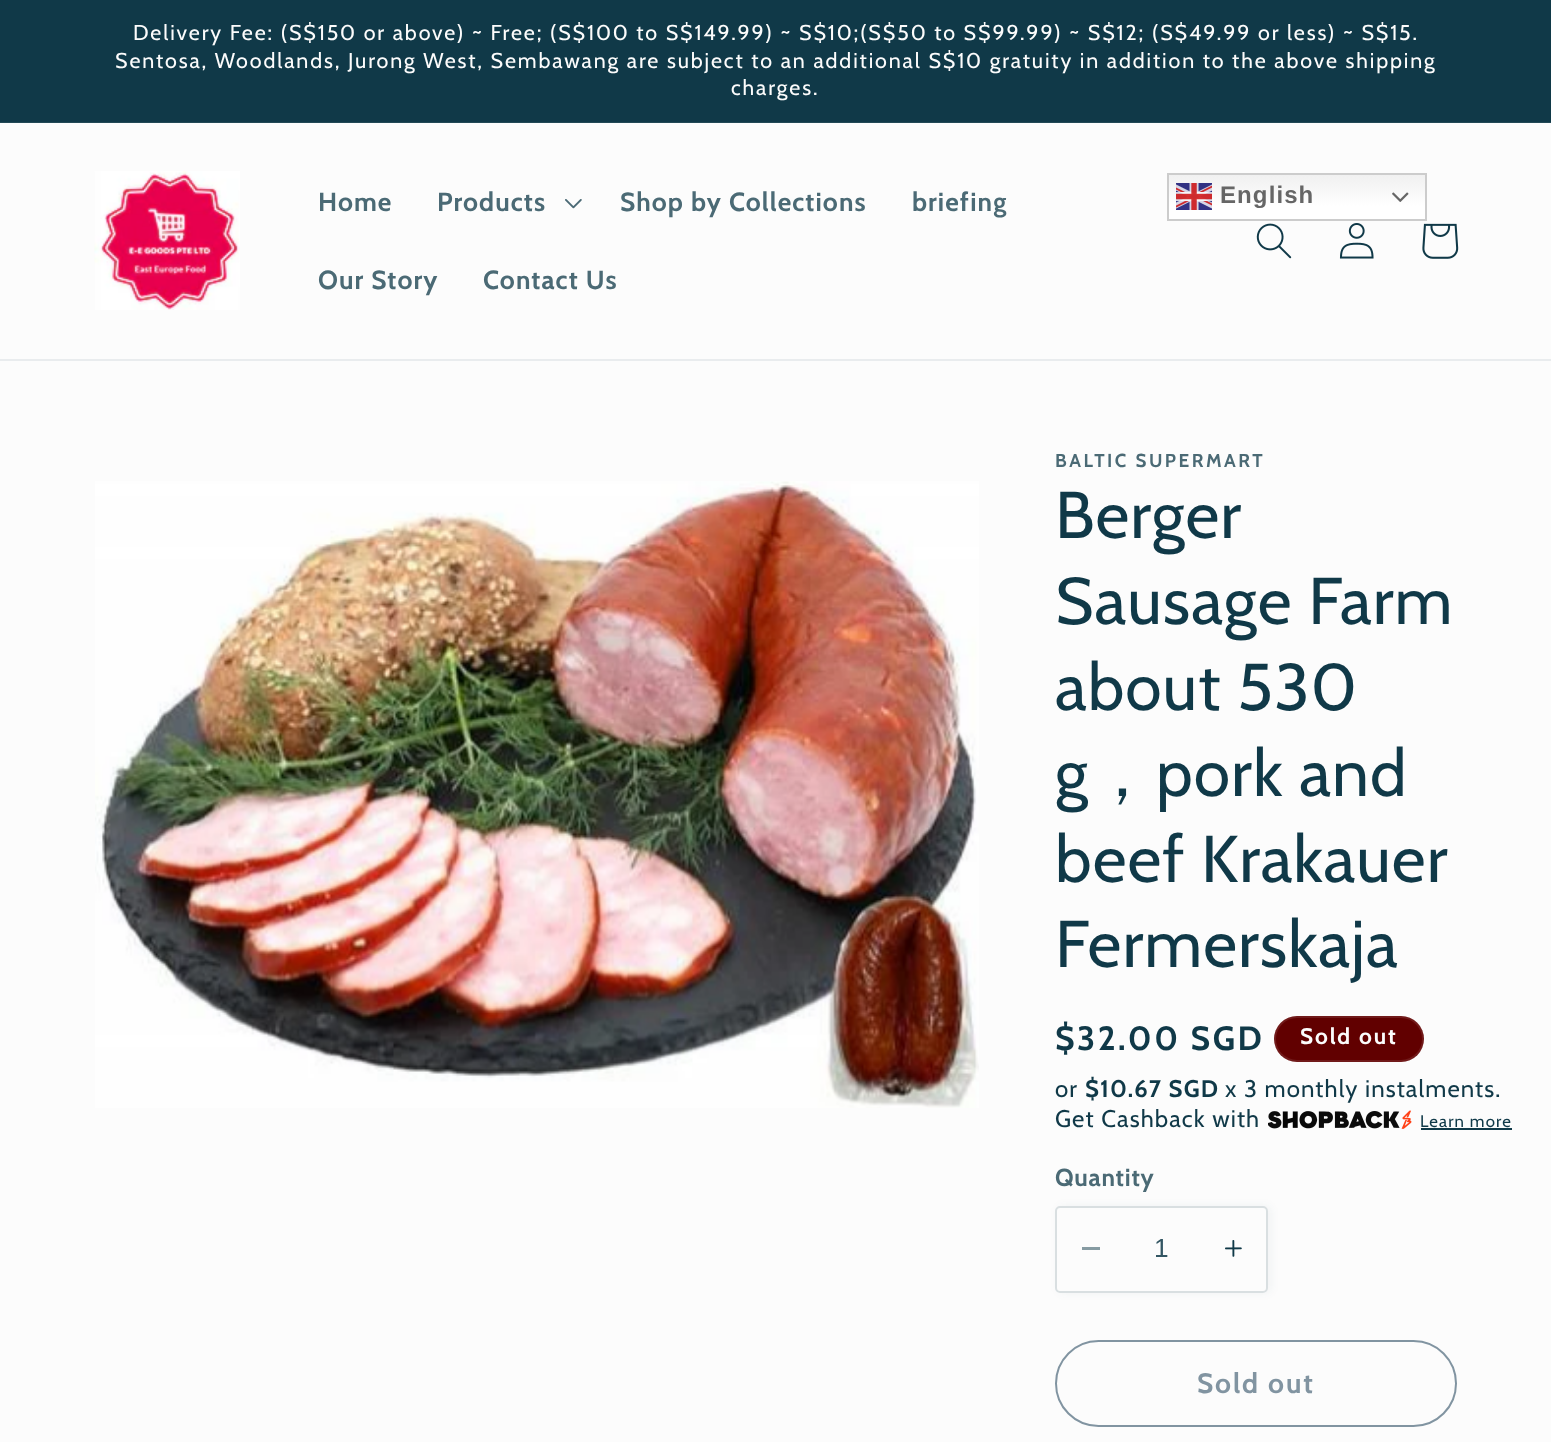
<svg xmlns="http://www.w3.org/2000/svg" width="1551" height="1442">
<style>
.a{font:21.45px Cabin;letter-spacing:1.88px;fill:#fcfcfc}
.b{font:bold 26.25px Cabin;letter-spacing:1.1px;fill:#4b6a75}
.c{font:bold 24px Liberation Sans;letter-spacing:1.1px;fill:#666}
.d{font:bold 18.75px Cabin;letter-spacing:2.5px;fill:#4b6a75}
.e{font:66px Cabin;letter-spacing:1px;fill:#103948}
.f{font:500 66px WenQuanYi Zen Hei;letter-spacing:1px;fill:#103948}
.g{font:bold 33.75px Cabin;letter-spacing:2.5px;fill:#103948}
.h{font:bold 22.5px Cabin;letter-spacing:1.88px;fill:#fcfcfc}
.i{font:24px Cabin;letter-spacing:1.1px;fill:#103948}
.j{font:bold 24px Cabin;letter-spacing:1.1px;fill:#103948}
.k{font:16.75px Cabin;letter-spacing:1.1px;fill:#103948}
.l{font:bold 24.5px Cabin;letter-spacing:0.75px;fill:#4b6a75}
.m{font:26.25px Liberation Sans;fill:#335663}
.n{font:bold 28px Cabin;letter-spacing:1.88px;fill:#8194a1}
</style>
<defs>
<linearGradient id="g1" gradientUnits="userSpaceOnUse" x1="1297" y1="172" x2="1297" y2="221"><stop offset="0" stop-color="#efefef"/><stop offset="0.7" stop-color="#fff"/></linearGradient>
</defs>
<rect width="100%" height="100%" fill="#fcfcfc"/>
<path fill="#103948" d="M0 0h1551v122H0z"/>
<path fill="#234956" d="M0 122h1551v1H0z"/>
<path fill="#e9ecee" d="M0 359h1551v2H0z"/>
<image href="1.png" x="94" y="171" width="146" height="139"/>
<image href="2.png" x="565" y="199" width="17" height="10"/>
<image href="3.png" x="1256" y="223" width="36" height="36"/>
<image href="4.png" x="1339" y="223" width="35" height="36"/>
<image href="5.png" x="1422" y="223" width="37" height="36"/>
<path fill="url(#g1)" d="M1169 175h256v44H1169z"/>
<path fill="none" stroke="#ccc" stroke-width="2" d="M1168 174h258v46H1168z"/>
<image href="6.png" x="1176" y="183" width="36" height="27"/>
<image href="7.png" x="1392" y="192" width="17" height="10"/>
<image href="8.png" x="95" y="481" width="884" height="627"/>
<rect fill="#610000" x="1274" y="1016" width="150" height="46" rx="23"/>
<rect fill="none" stroke="#fcfcfc1a" stroke-width="2" x="1275" y="1017" width="148" height="44" rx="22"/>
<image href="9.png" x="1268" y="1110" width="144" height="19"/>
<path fill="#103948" d="M1421 1128h91v2H1421z"/>
<rect fill="#1039480d" filter="blur(4px)" x="1058" y="1206" width="213" height="87" rx="5"/>
<rect fill="#fcfcfc" x="1055" y="1206" width="213" height="87" rx="5"/>
<path fill="#869ba2" d="M1082 1247h18v3H1082z"/>
<image href="10.png" x="1225" y="1240" width="17" height="17"/>
<rect fill="none" stroke="#d9dfe1" stroke-width="2" x="1056" y="1207" width="211" height="85" rx="4"/>
<rect fill="none" stroke="#8194a1" stroke-width="2" x="1056" y="1341" width="400" height="85" rx="42.5"/>
<text class="a" x="133" y="40">Delivery Fee: (S$150 or above) ~ Free; (S$100 to S$149.99) ~ S$10;(S$50 to S$99.99) ~ S$12; (S$49.99 or less) ~ S$15.</text>
<text class="a" x="115" y="68">Sentosa, Woodlands, Jurong West, Sembawang are subject to an additional S$10 gratuity in addition to the above shipping</text>
<text class="a" x="731" y="95">charges.</text>
<text class="b" x="318" y="211">Home</text>
<text class="b" x="437" y="211">Products</text>
<text class="b" x="620" y="211">Shop by Collections</text>
<text class="b" x="912" y="211">briefing</text>
<text class="b" x="318" y="289">Our Story</text>
<text class="b" x="483" y="289">Contact Us</text>
<text class="c" x="1220" y="203">English</text>
<text class="d" x="1055" y="467">BALTIC SUPERMART</text>
<text class="e" x="1055" y="538">Berger</text>
<text class="e" x="1055" y="624">Sausage Farm</text>
<text class="e" x="1055" y="710">about 530</text>
<text class="e" x="1055" y="796">g</text>
<text class="f" x="1089" y="796">，</text>
<text class="e" x="1156" y="796">pork and</text>
<text class="e" x="1055" y="882">beef Krakauer</text>
<text class="e" x="1055" y="967">Fermerskaja</text>
<text class="g" x="1055" y="1050">$32.00 SGD</text>
<text class="h" x="1300" y="1044">Sold out</text>
<text class="i" x="1055" y="1097">or</text>
<text class="j" x="1085" y="1097">$10.67 SGD</text>
<text class="i" x="1225" y="1097">x 3 monthly instalments.</text>
<text class="i" x="1055" y="1127">Get Cashback with</text>
<text class="k" x="1420" y="1127">Learn more</text>
<text class="l" x="1055" y="1186">Quantity</text>
<text class="m" x="1154" y="1257">1</text>
<text class="n" x="1197" y="1393">Sold out</text>
</svg>
